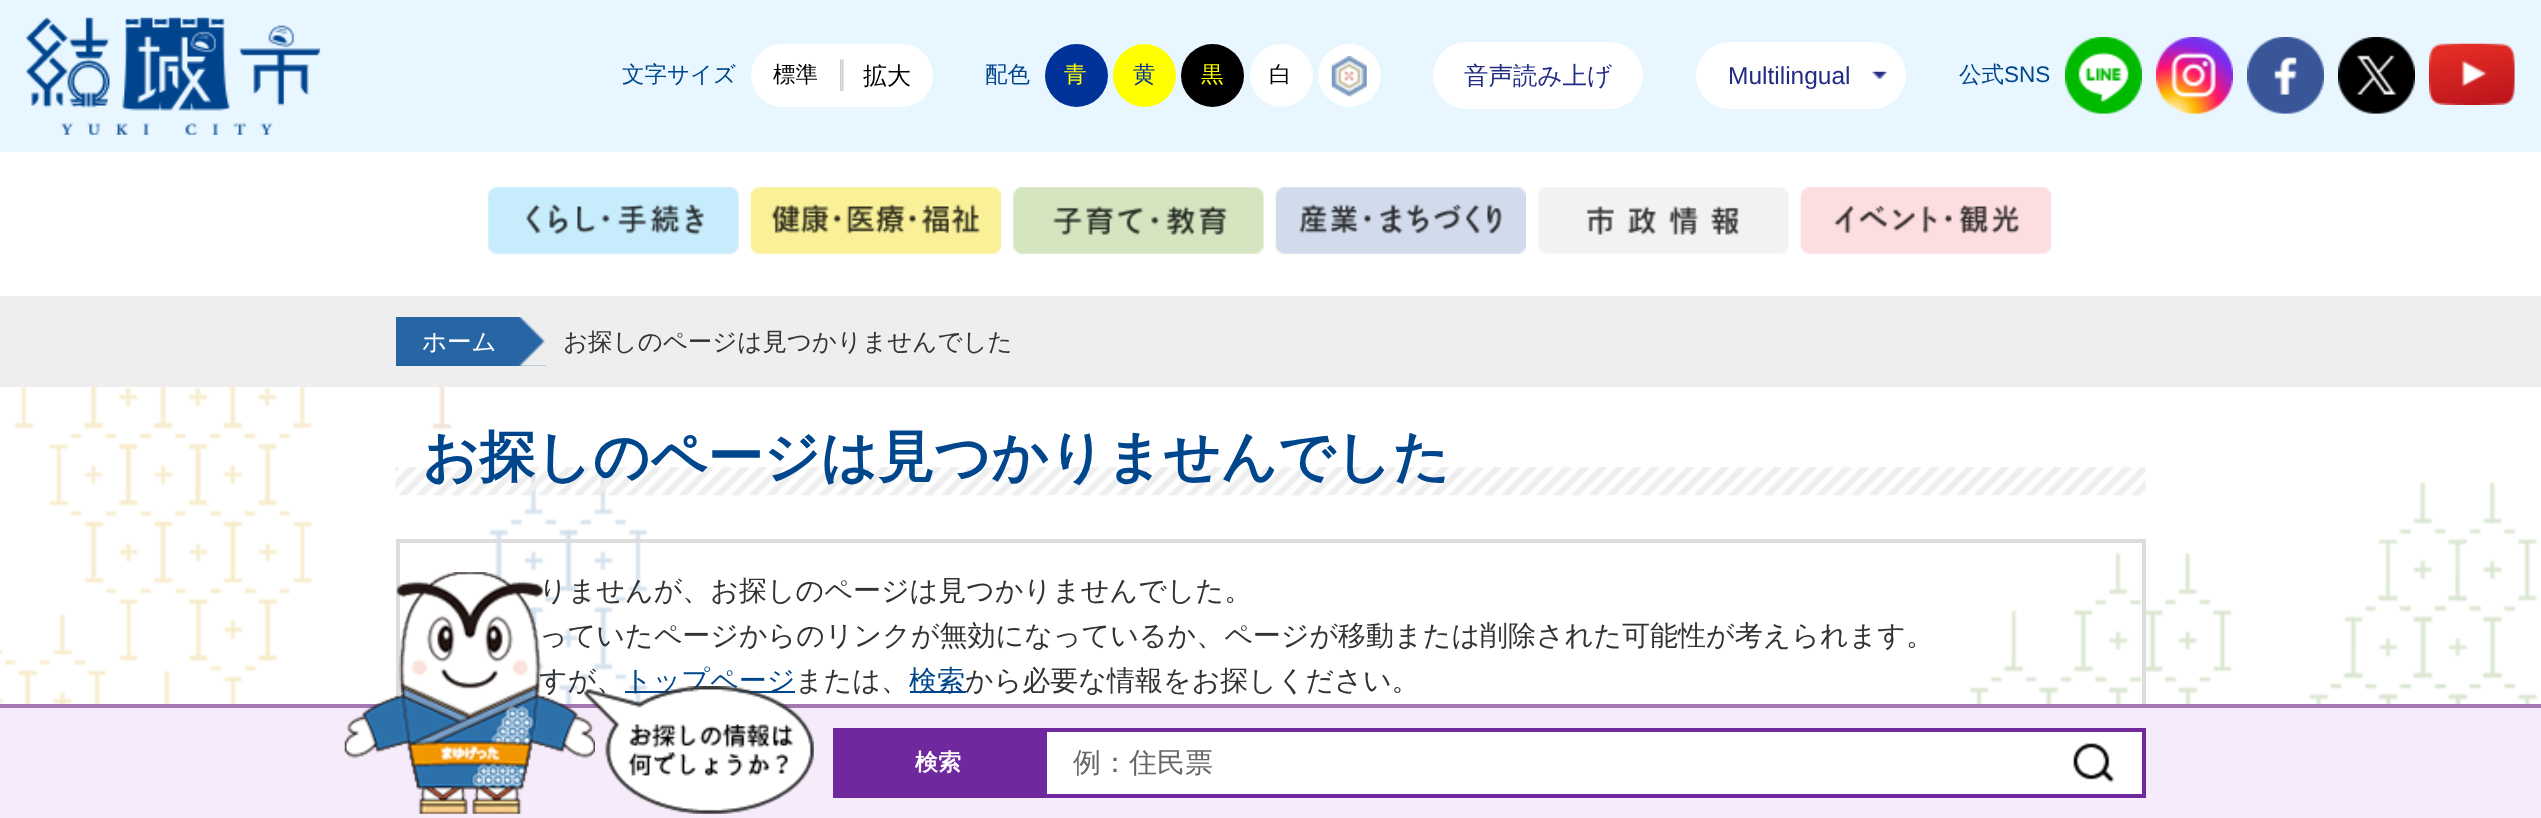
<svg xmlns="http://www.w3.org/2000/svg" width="2541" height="818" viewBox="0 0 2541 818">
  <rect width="100%" height="100%" fill="#ffffff"/>
  <image x="0" y="387" width="2538" height="317" href="img1.png"/>
  <rect x="0" y="0" width="2541" height="152" fill="#e7f6ff"/>
  <image x="26" y="17" width="295" height="118" href="img2.png"/>
  <text x="622" y="82" font-family="WenQuanYi Zen Hei" font-size="22.5" font-weight="500" fill="#00468c">文字サイズ</text>
  <path d="M782.5 44H842V107H782.5C765 107 751 93 751 75.5C751 58 765 44 782.5 44Z" fill="#ffffff"/>
  <image x="840" y="59" width="2" height="32" href="img3.png"/>
  <text x="773" y="82" font-family="WenQuanYi Zen Hei" font-size="22.5" font-weight="500" fill="#000000">標準</text>
  <path d="M842 44H901.5C919 44 933 58 933 75.5C933 93 919 107 901.5 107H842Z" fill="#ffffff"/>
  <image x="842" y="59" width="2" height="32" href="img4.png"/>
  <text x="863" y="84" font-family="WenQuanYi Zen Hei" font-size="24" font-weight="500" fill="#000000">拡大</text>
  <text x="985" y="82" font-family="WenQuanYi Zen Hei" font-size="22.5" font-weight="500" fill="#00468c">配色</text>
  <circle cx="1076.5" cy="75.5" r="31.5" fill="#003399"/>
  <text x="1064" y="82" font-family="WenQuanYi Zen Hei" font-size="22.5" font-weight="500" fill="#ffff00">青</text>
  <circle cx="1144.5" cy="75.5" r="31.5" fill="#ffff00"/>
  <text x="1133" y="82" font-family="WenQuanYi Zen Hei" font-size="22.5" font-weight="500" fill="#003399">黄</text>
  <circle cx="1212.5" cy="75.5" r="31.5" fill="#000000"/>
  <text x="1201" y="82" font-family="WenQuanYi Zen Hei" font-size="22.5" font-weight="500" fill="#ffff00">黒</text>
  <circle cx="1281.5" cy="75.5" r="31.5" fill="#ffffff"/>
  <text x="1269" y="82" font-family="WenQuanYi Zen Hei" font-size="22.5" font-weight="500" fill="#000000">白</text>
  <circle cx="1349.5" cy="75.5" r="31.5" fill="#ffffff"/>
  <image x="1331" y="56" width="36" height="41" href="img5.png"/>
  <rect x="1433" y="42" width="210" height="67" rx="33.5" fill="#ffffff"/>
  <text x="1464" y="84" font-family="WenQuanYi Zen Hei" font-size="24.5" font-weight="500" fill="#232c83">音声読み上げ</text>
  <rect x="1696" y="42" width="210" height="67" rx="33.5" fill="#ffffff"/>
  <image x="1872" y="71" width="15" height="8" href="img6.png"/>
  <text x="1728" y="84" font-family="Liberation Sans" font-size="24.5" fill="#232c83">Multilingual</text>
  <text x="1959" y="82" font-family="WenQuanYi Zen Hei" font-size="22.5" font-weight="500" fill="#00468c">公式</text>
  <text x="2004" y="82" font-family="Liberation Sans" font-size="22.5" fill="#00468c">SNS</text>
  <image x="2065" y="37" width="77" height="77" href="img7.png"/>
  <image x="2156" y="37" width="77" height="77" href="img8.png"/>
  <image x="2247" y="37" width="77" height="77" href="img9.png"/>
  <image x="2338" y="37" width="77" height="77" href="img10.png"/>
  <image x="2429" y="43" width="86" height="62" href="img11.png"/>
  <image x="488" y="187" width="251" height="68" href="img12.png"/>
  <image x="750" y="187" width="251" height="68" href="img13.png"/>
  <image x="1013" y="187" width="251" height="68" href="img14.png"/>
  <image x="1275" y="187" width="251" height="68" href="img15.png"/>
  <image x="1538" y="187" width="251" height="67" href="img16.png"/>
  <image x="1800" y="187" width="251" height="68" href="img17.png"/>
  <rect x="0" y="296" width="2541" height="91" fill="#eeeeee"/>
  <rect x="396" y="317" width="150" height="49" fill="#2765a5"/>
  <image x="519" y="317" width="27" height="49" href="img18.png"/>
  <text x="422" y="350" font-family="WenQuanYi Zen Hei" font-size="24.5" font-weight="500" fill="#ffffff">ホーム</text>
  <text x="563" y="350" font-family="WenQuanYi Zen Hei" font-size="24.5" font-weight="500" fill="#333333">お探しのページは見つかりませんでした</text>
  <image x="395" y="467" width="1751" height="29" href="img19.png"/>
  <text x="422" y="476" font-family="WenQuanYi Zen Hei" font-size="56" font-weight="bold" fill="#00468c">お探しのページは見つかりませんでした</text>
  <rect x="398" y="541" width="1746" height="190" fill="none" stroke="#dddddd" stroke-width="4"/>
  <text x="539" y="600" font-family="WenQuanYi Zen Hei" font-size="28" font-weight="500" fill="#333333">りませんが、お探しのページは見つかりませんでした。</text>
  <text x="539" y="645" font-family="WenQuanYi Zen Hei" font-size="28" font-weight="500" fill="#333333">っていたページからのリンクが無効になっているか、ページが移動または削除された可能性が考えられます。</text>
  <text x="539" y="690" font-family="WenQuanYi Zen Hei" font-size="28" font-weight="500" fill="#333333">すが、</text>
  <rect x="625" y="691" width="170" height="2" fill="#00468c"/>
  <text x="624" y="690" font-family="WenQuanYi Zen Hei" font-size="28" font-weight="500" fill="#00468c">トップページ</text>
  <text x="795" y="690" font-family="WenQuanYi Zen Hei" font-size="28" font-weight="500" fill="#333333">または、</text>
  <rect x="910" y="691" width="56" height="2" fill="#00468c"/>
  <text x="909" y="690" font-family="WenQuanYi Zen Hei" font-size="28" font-weight="500" fill="#00468c">検索</text>
  <text x="965" y="690" font-family="WenQuanYi Zen Hei" font-size="28" font-weight="500" fill="#333333">から必要な情報をお探しください。</text>
  <rect x="0" y="708" width="2541" height="110" fill="#f6ebfa"/>
  <rect x="0" y="704" width="2541" height="4" fill="#a277b2"/>
  <image x="344" y="572" width="251" height="242" href="img20.png"/>
  <rect x="833" y="728" width="210" height="70" fill="#6f289d"/>
  <text x="915" y="770" font-family="WenQuanYi Zen Hei" font-size="23" font-weight="bold" fill="#ffffff">検索</text>
  <image x="584" y="686" width="230" height="128" href="img21.png"/>
  <rect x="1045" y="730" width="1099" height="66" fill="#ffffff" stroke="#6f289d" stroke-width="4"/>
  <text x="1073" y="772" font-family="WenQuanYi Zen Hei" font-size="28" font-weight="500" fill="#666666">例：住民票</text>
  <image x="2073" y="743" width="42" height="40" href="img22.png"/>
</svg>
